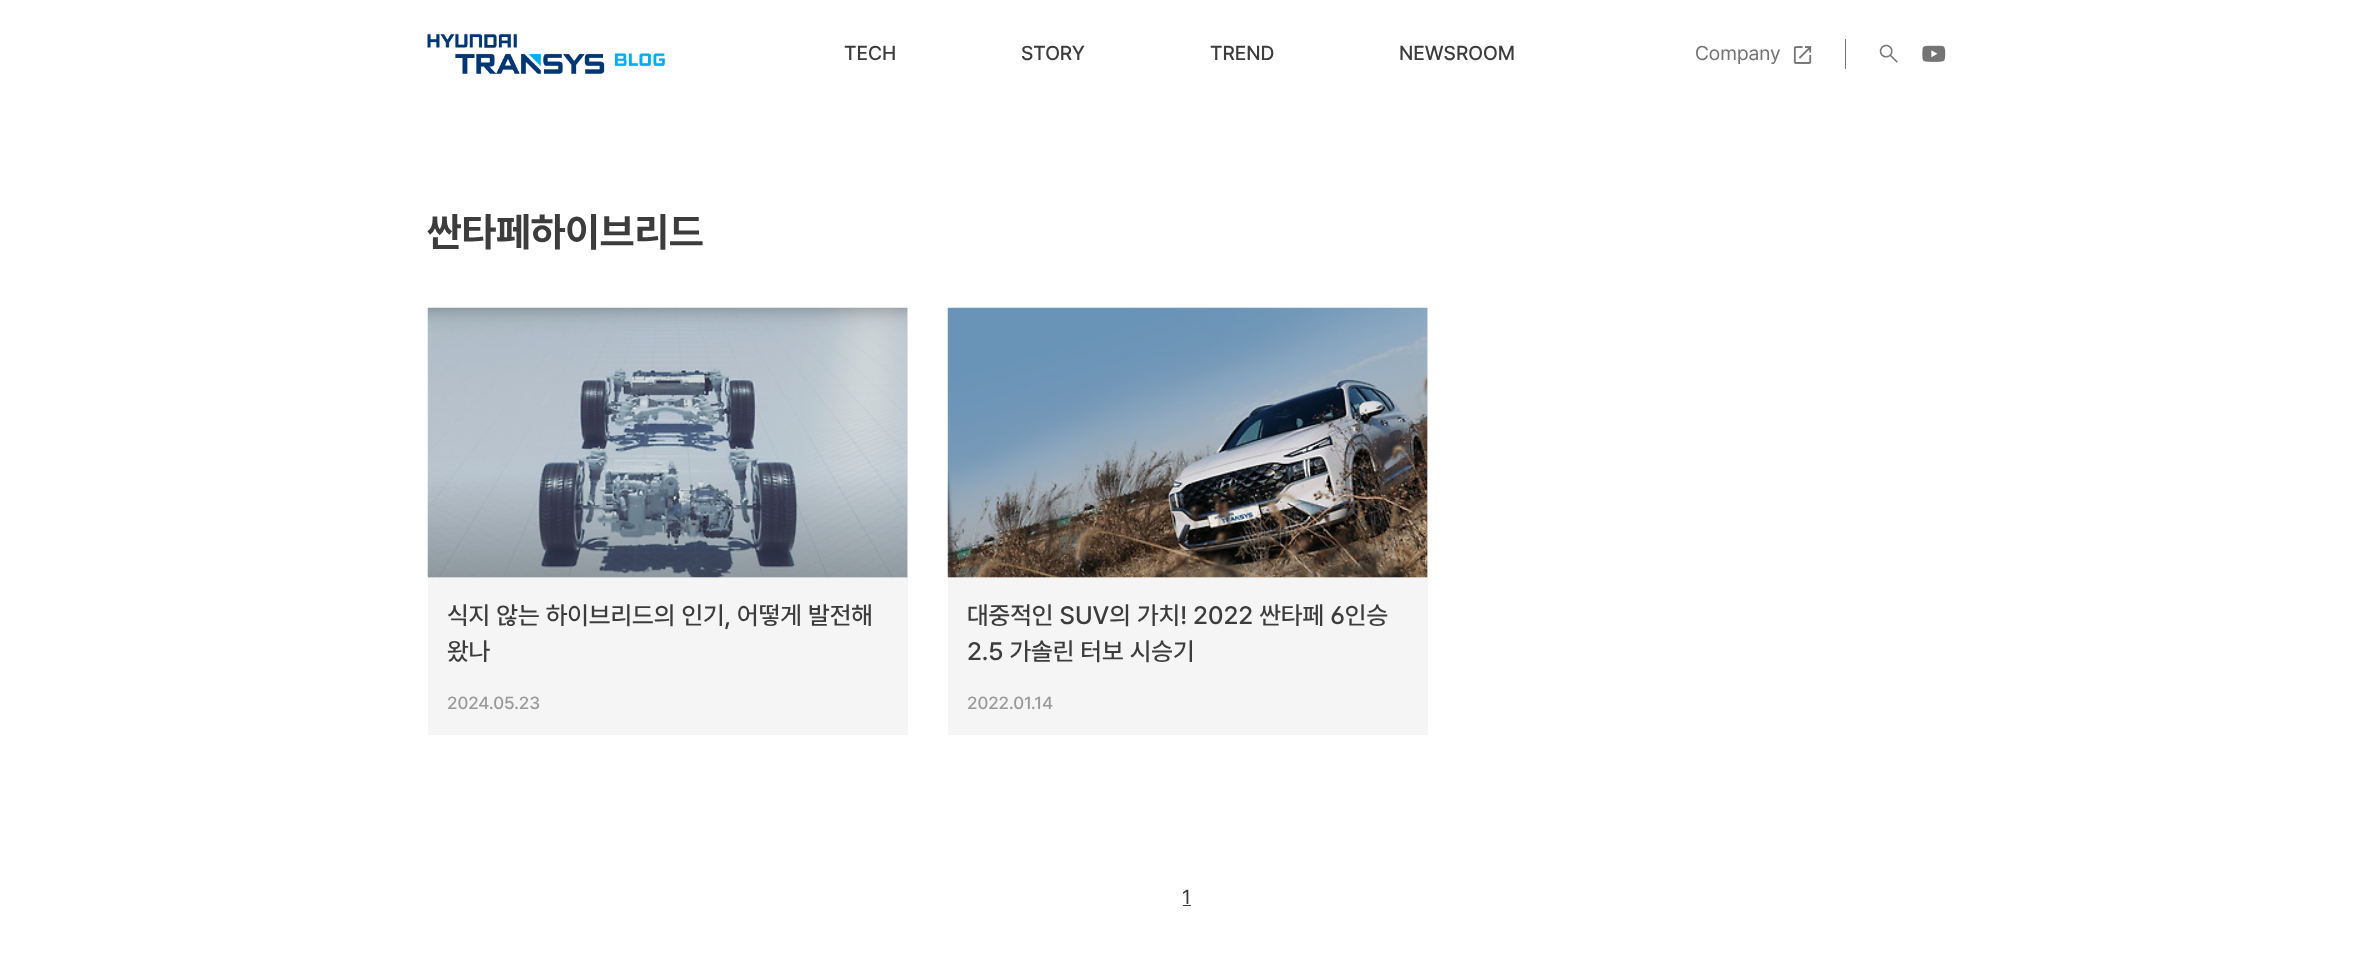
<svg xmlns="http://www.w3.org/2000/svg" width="2373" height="968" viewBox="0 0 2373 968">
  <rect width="100%" height="100%" fill="#ffffff"/>
  <image x="427" y="33" width="238" height="41" href="img1.png"/>
  <text x="844" y="60" font-family="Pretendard" font-size="20" font-weight="500" fill="#3c3c3c">TECH</text>
  <text x="1021" y="60" font-family="Pretendard" font-size="20" font-weight="500" fill="#3c3c3c">STORY</text>
  <text x="1210" y="60" font-family="Pretendard" font-size="20" font-weight="500" fill="#3c3c3c">TREND</text>
  <text x="1399" y="60" font-family="Pretendard" font-size="20" font-weight="500" fill="#3c3c3c">NEWSROOM</text>
  <text x="1695" y="60" font-family="Pretendard" font-size="20" fill="#747474">Company</text>
  <image x="1793" y="46" width="19" height="18" href="img2.png"/>
  <rect x="1845" y="39" width="1" height="30" fill="#747474"/>
  <image x="1879" y="44" width="19" height="19" href="img3.png"/>
  <image x="1922" y="45" width="24" height="17" href="img4.png"/>
  <text x="427" y="246" font-family="Pretendard" font-size="40" font-weight="bold" fill="#3c3c3c">싼타페하이브리드</text>
  <rect x="428" y="578" width="480" height="157" fill="#f5f5f5"/>
  <rect x="428" y="308" width="480" height="270" fill="#e6e6e6"/>
  <image x="427" y="307" width="481" height="271" href="img5.png"/>
  <text x="447" y="624" font-family="Pretendard" font-size="25" font-weight="500" fill="#3c3c3c">식지 않는 하이브리드의 인기, 어떻게 발전해</text>
  <text x="447" y="660" font-family="Pretendard" font-size="25" font-weight="500" fill="#3c3c3c">왔나</text>
  <text x="447" y="709" font-family="Pretendard" font-size="17.5" font-weight="500" fill="#999999">2024.05.23</text>
  <rect x="948" y="578" width="480" height="157" fill="#f5f5f5"/>
  <rect x="948" y="308" width="480" height="270" fill="#e6e6e6"/>
  <image x="947" y="307" width="481" height="271" href="img6.png"/>
  <text x="967" y="624" font-family="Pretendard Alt" font-size="25" font-weight="500" fill="#3c3c3c">대중적인 SUV의 가치! 2022 싼타페 6인승</text>
  <text x="967" y="660" font-family="Pretendard" font-size="25" font-weight="500" fill="#3c3c3c">2.5 가솔린 터보 시승기</text>
  <text x="967" y="709" font-family="Pretendard" font-size="17.5" font-weight="500" fill="#999999">2022.01.14</text>
  <text x="1182" y="904" font-family="Pretendard" font-size="20" fill="#3c3c3c">1</text>
  <rect x="1183" y="905" width="8" height="1" fill="#3c3c3c"/>
</svg>
